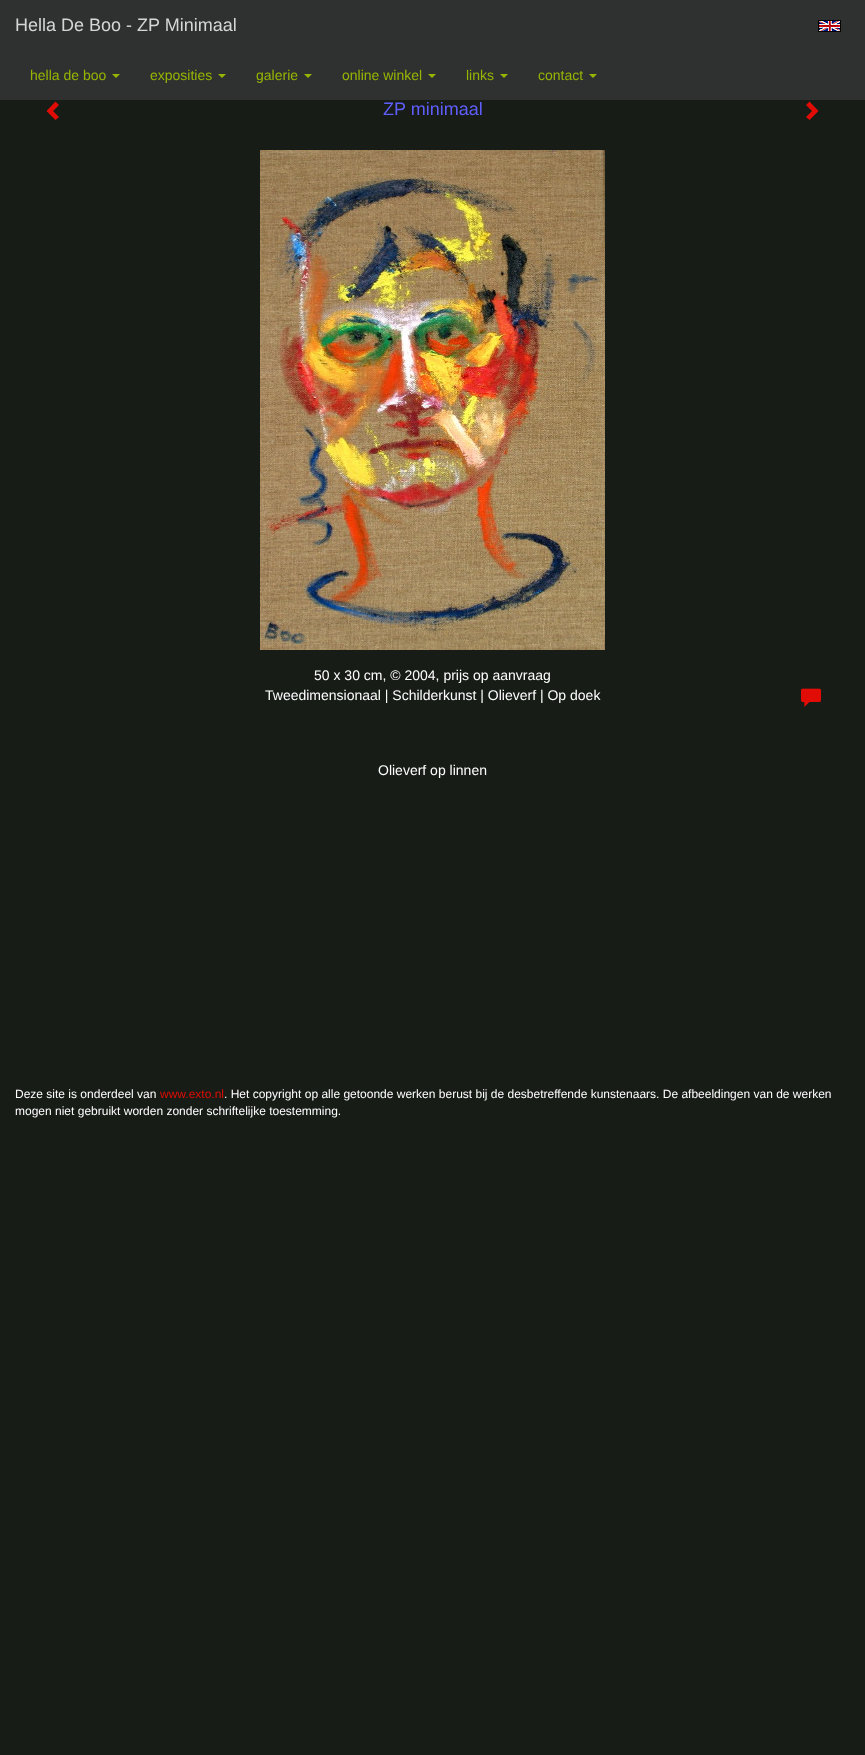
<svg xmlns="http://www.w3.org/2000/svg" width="865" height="1755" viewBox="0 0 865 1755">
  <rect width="100%" height="100%" fill="#171c17"/>
  <rect x="0" y="0" width="865" height="100" fill="#2f3130"/>
  <text x="15" y="31" font-family="Liberation Sans" font-size="18" fill="#d5d6d6">Hella De Boo - ZP Minimaal</text>
  <image x="818" y="20" width="23" height="12" href="img1.png"/>
  <text x="30" y="80" font-family="Liberation Sans" font-size="14" fill="#98b503">hella de boo</text>
  <path d="M112 74H120L116 78Z" fill="#98b503"/>
  <text x="150" y="80" font-family="Liberation Sans" font-size="14" fill="#98b503">exposities</text>
  <path d="M218 74H226L222 78Z" fill="#98b503"/>
  <text x="256" y="80" font-family="Liberation Sans" font-size="14" fill="#98b503">galerie</text>
  <path d="M304 74H312L308 78Z" fill="#98b503"/>
  <text x="342" y="80" font-family="Liberation Sans" font-size="14" fill="#98b503">online winkel</text>
  <path d="M428 74H436L432 78Z" fill="#98b503"/>
  <text x="466" y="80" font-family="Liberation Sans" font-size="14" fill="#98b503">links</text>
  <path d="M500 74H508L504 78Z" fill="#98b503"/>
  <text x="538" y="80" font-family="Liberation Sans" font-size="14" fill="#98b503">contact</text>
  <path d="M589 74H597L593 78Z" fill="#98b503"/>
  <path d="M59 105L53 111L59 117L55.5 120L46.5 111L55.5 101.5Z" fill="#e10c05"/>
  <text x="383" y="115" font-family="Liberation Sans" font-size="18" fill="#5f5efd">ZP minimaal</text>
  <path d="M818.5 111L809.5 120L806 117L812 111L806 105L809.5 101.5Z" fill="#e10c05"/>
  <image x="260" y="150" width="345" height="500" href="img2.png"/>
  <text x="314" y="680" font-family="Liberation Sans" font-size="14" fill="#ffffff">50 x 30 cm, © 2004, prijs op aanvraag</text>
  <text x="265" y="700" font-family="Liberation Sans" font-size="14" fill="#ffffff">Tweedimensionaal | Schilderkunst | Olieverf | Op doek</text>
  <image x="801" y="688" width="20" height="19" href="img3.png"/>
  <text x="378" y="775" font-family="Liberation Sans" font-size="14" fill="#ffffff">Olieverf op linnen</text>
  <text x="15" y="1098" font-family="Liberation Sans" font-size="12" fill="#ffffff">Deze site is onderdeel van</text>
  <text x="160" y="1098" font-family="Liberation Sans" font-size="12" fill="#e10c05">www.exto.nl</text>
  <text x="224" y="1098" font-family="Liberation Sans" font-size="12" fill="#ffffff">. Het copyright op alle getoonde werken berust bij de desbetreffende kunstenaars. De afbeeldingen van de werken</text>
  <text x="15" y="1115" font-family="Liberation Sans" font-size="12" fill="#ffffff">mogen niet gebruikt worden zonder schriftelijke toestemming.</text>
</svg>
